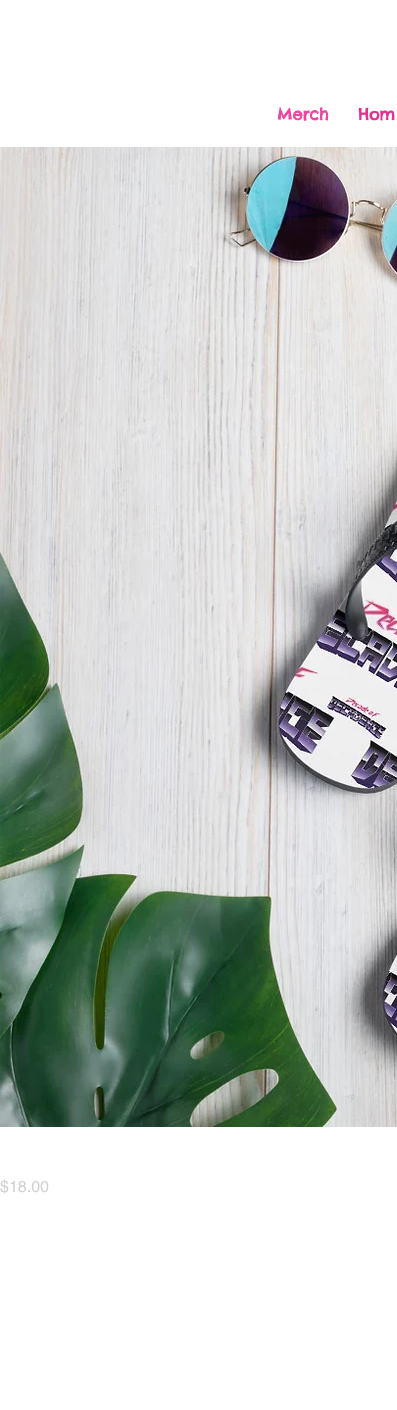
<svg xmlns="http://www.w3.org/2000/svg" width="397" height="1410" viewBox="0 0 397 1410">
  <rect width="100%" height="100%" fill="#ffffff"/>
  <text x="277" y="120" font-family="Chelsea Market" font-size="16" font-weight="bold" fill="#ed45a0">Merch</text>
  <text x="358" y="120" font-family="Chelsea Market" font-size="16" font-weight="bold" fill="#e43292">Hom</text>
  <image x="0" y="147" width="397" height="980" href="img1.png"/>
  <text x="0" y="1192" font-family="helvetica" font-size="16" fill="#d1d1d1">$18.00</text>
</svg>
